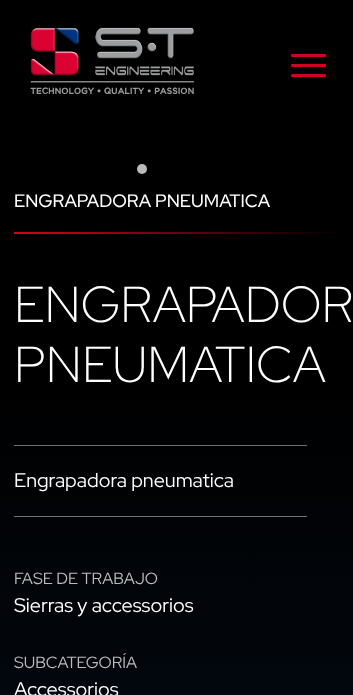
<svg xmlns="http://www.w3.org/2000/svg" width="353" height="695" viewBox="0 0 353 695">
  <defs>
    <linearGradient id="g1" gradientUnits="userSpaceOnUse" x1="176" y1="0" x2="177" y2="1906"><stop offset="0.2" stop-color="#000000"/><stop offset="0.9" stop-color="#081d38"/></linearGradient>
    <linearGradient id="g2" gradientUnits="userSpaceOnUse" x1="14" y1="233" x2="340" y2="233"><stop offset="0" stop-color="#d20022"/><stop offset="1" stop-color="#000000"/></linearGradient>
  </defs>
  <rect width="100%" height="100%" fill="#ffffff"/>
  <rect x="0" y="0" width="353" height="695" fill="url(#g1)"/>
  <image x="30" y="27" width="164" height="68" href="img1.png"/>
  <rect x="291" y="54" width="35" height="3" rx="1" fill="#d20022"/>
  <rect x="291" y="64" width="35" height="3" rx="1" fill="#d20022"/>
  <rect x="291" y="74" width="35" height="3" rx="1" fill="#d20022"/>
  <circle cx="142" cy="169" r="5" fill="#b9bbbc"/>
  <text x="14" y="207" font-family="Red Hat Display" font-size="18" font-weight="500" fill="#ffffff">ENGRAPADORA PNEUMATICA</text>
  <rect x="14" y="232" width="326" height="2" fill="url(#g2)"/>
  <text x="14" y="322" font-family="Red Hat Display" font-size="50.5" font-weight="300" fill="#ffffff">ENGRAPADOR</text>
  <text x="14" y="382" font-family="Red Hat Display" font-size="50.5" font-weight="300" fill="#ffffff">PNEUMATICA</text>
  <rect x="14" y="445" width="293" height="1" fill="#707070"/>
  <rect x="14" y="516" width="293" height="1" fill="#707070"/>
  <text x="14" y="487" font-family="Red Hat Display" font-size="19.75" fill="#ffffff">Engrapadora pneumatica</text>
  <text x="14" y="584" font-family="Red Hat Display" font-size="16.25" fill="#b9bbbc">FASE DE TRABAJO</text>
  <text x="14" y="612" font-family="Red Hat Display" font-size="19.75" fill="#ffffff">Sierras y accessorios</text>
  <text x="14" y="668" font-family="Red Hat Display" font-size="16.25" fill="#b9bbbc">SUBCATEGORÍA</text>
  <text x="14" y="696" font-family="Red Hat Display" font-size="19.75" fill="#ffffff">Accessorios</text>
</svg>
